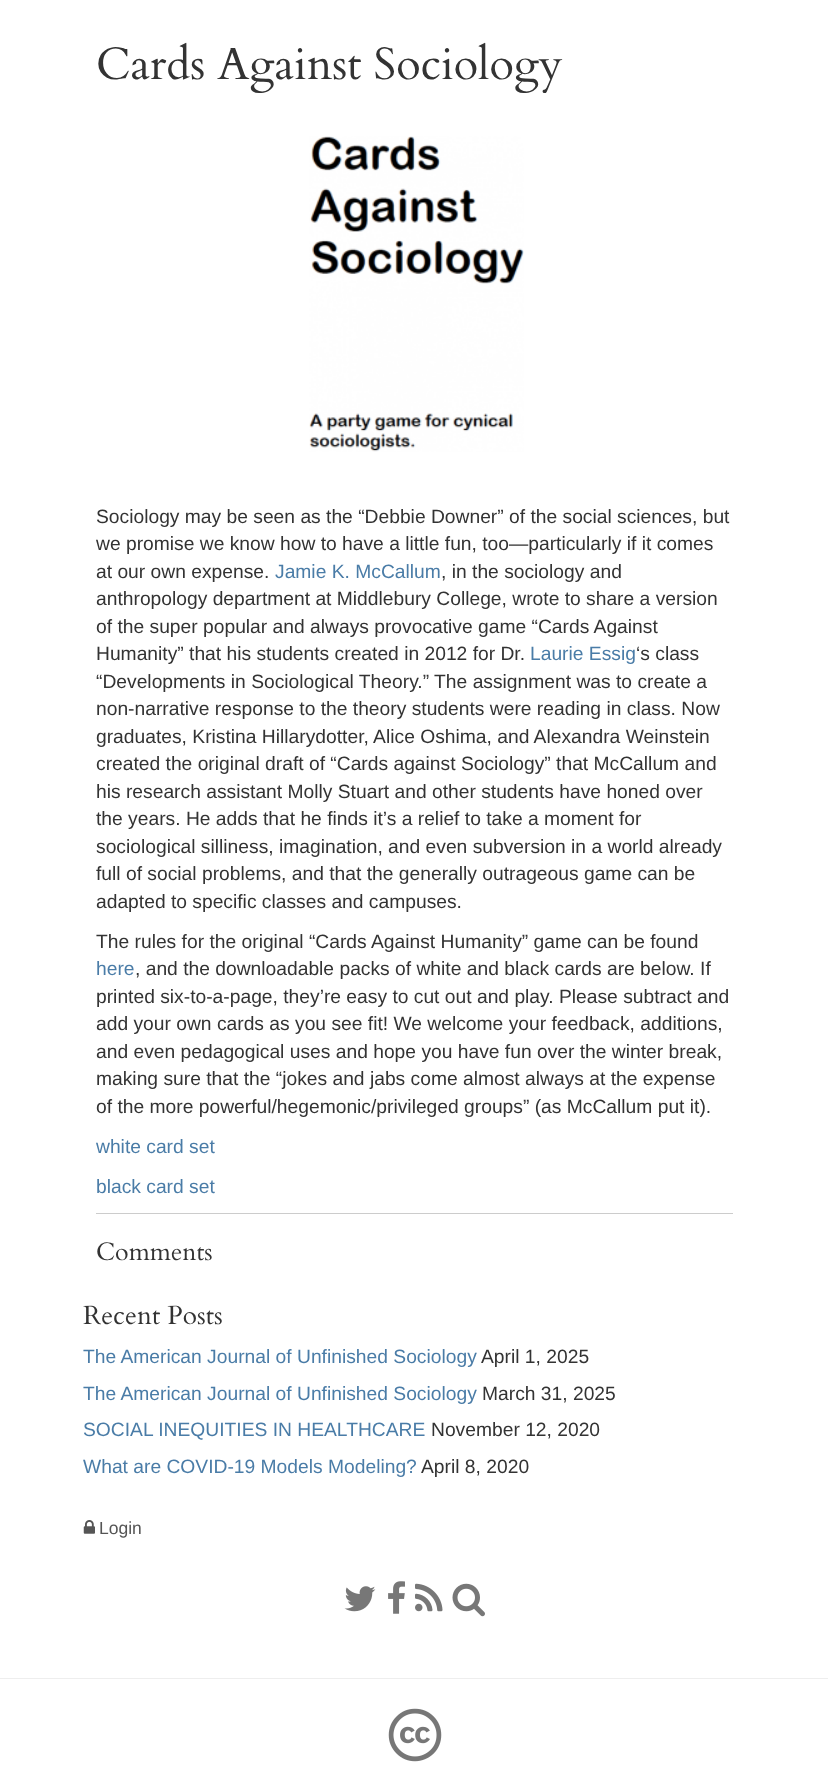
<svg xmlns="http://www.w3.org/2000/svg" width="828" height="1777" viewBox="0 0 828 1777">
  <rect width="100%" height="100%" fill="#ffffff"/>
  <text x="96" y="79" font-family="Cardo" font-size="45" fill="#333333">Cards Against Sociology</text>
  <image x="309" y="136" width="215" height="316" href="img1.png"/>
  <text x="96" y="523" font-family="Liberation Sans" font-size="19.25" fill="#333333">Sociology may be seen as the “Debbie Downer” of the social sciences, but</text>
  <text x="96" y="550" font-family="Liberation Sans" font-size="19.25" fill="#333333">we promise we know how to have a little fun, too—particularly if it comes</text>
  <text x="96" y="578" font-family="Liberation Sans" font-size="19.25" fill="#333333">at our own expense.</text>
  <text x="275" y="578" font-family="Liberation Sans" font-size="19.25" fill="#4a7ca7">Jamie K. McCallum</text>
  <text x="441" y="578" font-family="Liberation Sans" font-size="19.25" fill="#333333">, in the sociology and</text>
  <text x="96" y="605" font-family="Liberation Sans" font-size="19.25" fill="#333333">anthropology department at Middlebury College, wrote to share a version</text>
  <text x="96" y="633" font-family="Liberation Sans" font-size="19.25" fill="#333333">of the super popular and always provocative game “Cards Against</text>
  <text x="96" y="660" font-family="Liberation Sans" font-size="19.25" fill="#333333">Humanity” that his students created in 2012 for Dr.</text>
  <text x="530" y="660" font-family="Liberation Sans" font-size="19.25" fill="#4a7ca7">Laurie Essig</text>
  <text x="636" y="660" font-family="Liberation Sans" font-size="19.25" fill="#333333">‘s class</text>
  <text x="96" y="688" font-family="Liberation Sans" font-size="19.25" fill="#333333">“Developments in Sociological Theory.” The assignment was to create a</text>
  <text x="96" y="715" font-family="Liberation Sans" font-size="19.25" fill="#333333">non-narrative response to the theory students were reading in class. Now</text>
  <text x="96" y="743" font-family="Liberation Sans" font-size="19.25" fill="#333333">graduates, Kristina Hillarydotter, Alice Oshima, and Alexandra Weinstein</text>
  <text x="96" y="770" font-family="Liberation Sans" font-size="19.25" fill="#333333">created the original draft of “Cards against Sociology” that McCallum and</text>
  <text x="96" y="798" font-family="Liberation Sans" font-size="19.25" fill="#333333">his research assistant Molly Stuart and other students have honed over</text>
  <text x="96" y="825" font-family="Liberation Sans" font-size="19.25" fill="#333333">the years. He adds that he finds it’s a relief to take a moment for</text>
  <text x="96" y="853" font-family="Liberation Sans" font-size="19.25" fill="#333333">sociological silliness, imagination, and even subversion in a world already</text>
  <text x="96" y="880" font-family="Liberation Sans" font-size="19.25" fill="#333333">full of social problems, and that the generally outrageous game can be</text>
  <text x="96" y="908" font-family="Liberation Sans" font-size="19.25" fill="#333333">adapted to specific classes and campuses.</text>
  <text x="96" y="948" font-family="Liberation Sans" font-size="19.25" fill="#333333">The rules for the original “Cards Against Humanity” game can be found</text>
  <text x="96" y="975" font-family="Liberation Sans" font-size="19.25" fill="#4a7ca7">here</text>
  <text x="135" y="975" font-family="Liberation Sans" font-size="19.25" fill="#333333">, and the downloadable packs of white and black cards are below. If</text>
  <text x="96" y="1003" font-family="Liberation Sans" font-size="19.25" fill="#333333">printed six-to-a-page, they’re easy to cut out and play. Please subtract and</text>
  <text x="96" y="1030" font-family="Liberation Sans" font-size="19.25" fill="#333333">add your own cards as you see fit! We welcome your feedback, additions,</text>
  <text x="96" y="1058" font-family="Liberation Sans" font-size="19.25" fill="#333333">and even pedagogical uses and hope you have fun over the winter break,</text>
  <text x="96" y="1085" font-family="Liberation Sans" font-size="19.25" fill="#333333">making sure that the “jokes and jabs come almost always at the expense</text>
  <text x="96" y="1113" font-family="Liberation Sans" font-size="19.25" fill="#333333">of the more powerful/hegemonic/privileged groups” (as McCallum put it).</text>
  <text x="96" y="1153" font-family="Liberation Sans" font-size="19.25" fill="#4a7ca7">white card set</text>
  <text x="96" y="1193" font-family="Liberation Sans" font-size="19.25" fill="#4a7ca7">black card set</text>
  <rect x="96" y="1213" width="637" height="1" fill="#cccccc"/>
  <text x="96" y="1260" font-family="Cardo" font-size="25" fill="#333333">Comments</text>
  <text x="83" y="1324" font-family="Cardo" font-size="26.25" fill="#333333">Recent Posts</text>
  <text x="83" y="1363" font-family="Liberation Sans" font-size="19.25" fill="#4a7ca7">The American Journal of Unfinished Sociology</text>
  <text x="481" y="1363" font-family="Liberation Sans" font-size="19.25" fill="#333333">April 1, 2025</text>
  <text x="83" y="1400" font-family="Liberation Sans" font-size="19.25" fill="#4a7ca7">The American Journal of Unfinished Sociology</text>
  <text x="482" y="1400" font-family="Liberation Sans" font-size="19.25" fill="#333333">March 31, 2025</text>
  <text x="83" y="1436" font-family="Liberation Sans" font-size="19.25" fill="#4a7ca7">SOCIAL INEQUITIES IN HEALTHCARE</text>
  <text x="431" y="1436" font-family="Liberation Sans" font-size="19.25" fill="#333333">November 12, 2020</text>
  <text x="83" y="1473" font-family="Liberation Sans" font-size="19.25" fill="#4a7ca7">What are COVID-19 Models Modeling?</text>
  <text x="421" y="1473" font-family="Liberation Sans" font-size="19.25" fill="#333333">April 8, 2020</text>
  <image x="83" y="1520" width="12" height="14" href="img2.png"/>
  <text x="99" y="1534" font-family="Liberation Sans" font-size="17.5" fill="#555555">Login</text>
  <image x="344" y="1586" width="32" height="26" href="img3.png"/>
  <image x="388" y="1581" width="17" height="33" href="img4.png"/>
  <image x="415" y="1583" width="28" height="29" href="img5.png"/>
  <image x="452" y="1583" width="33" height="34" href="img6.png"/>
  <rect x="0" y="1678" width="828" height="1" fill="#eeeeee"/>
  <image x="388" y="1708" width="54" height="54" href="img7.png"/>
</svg>
